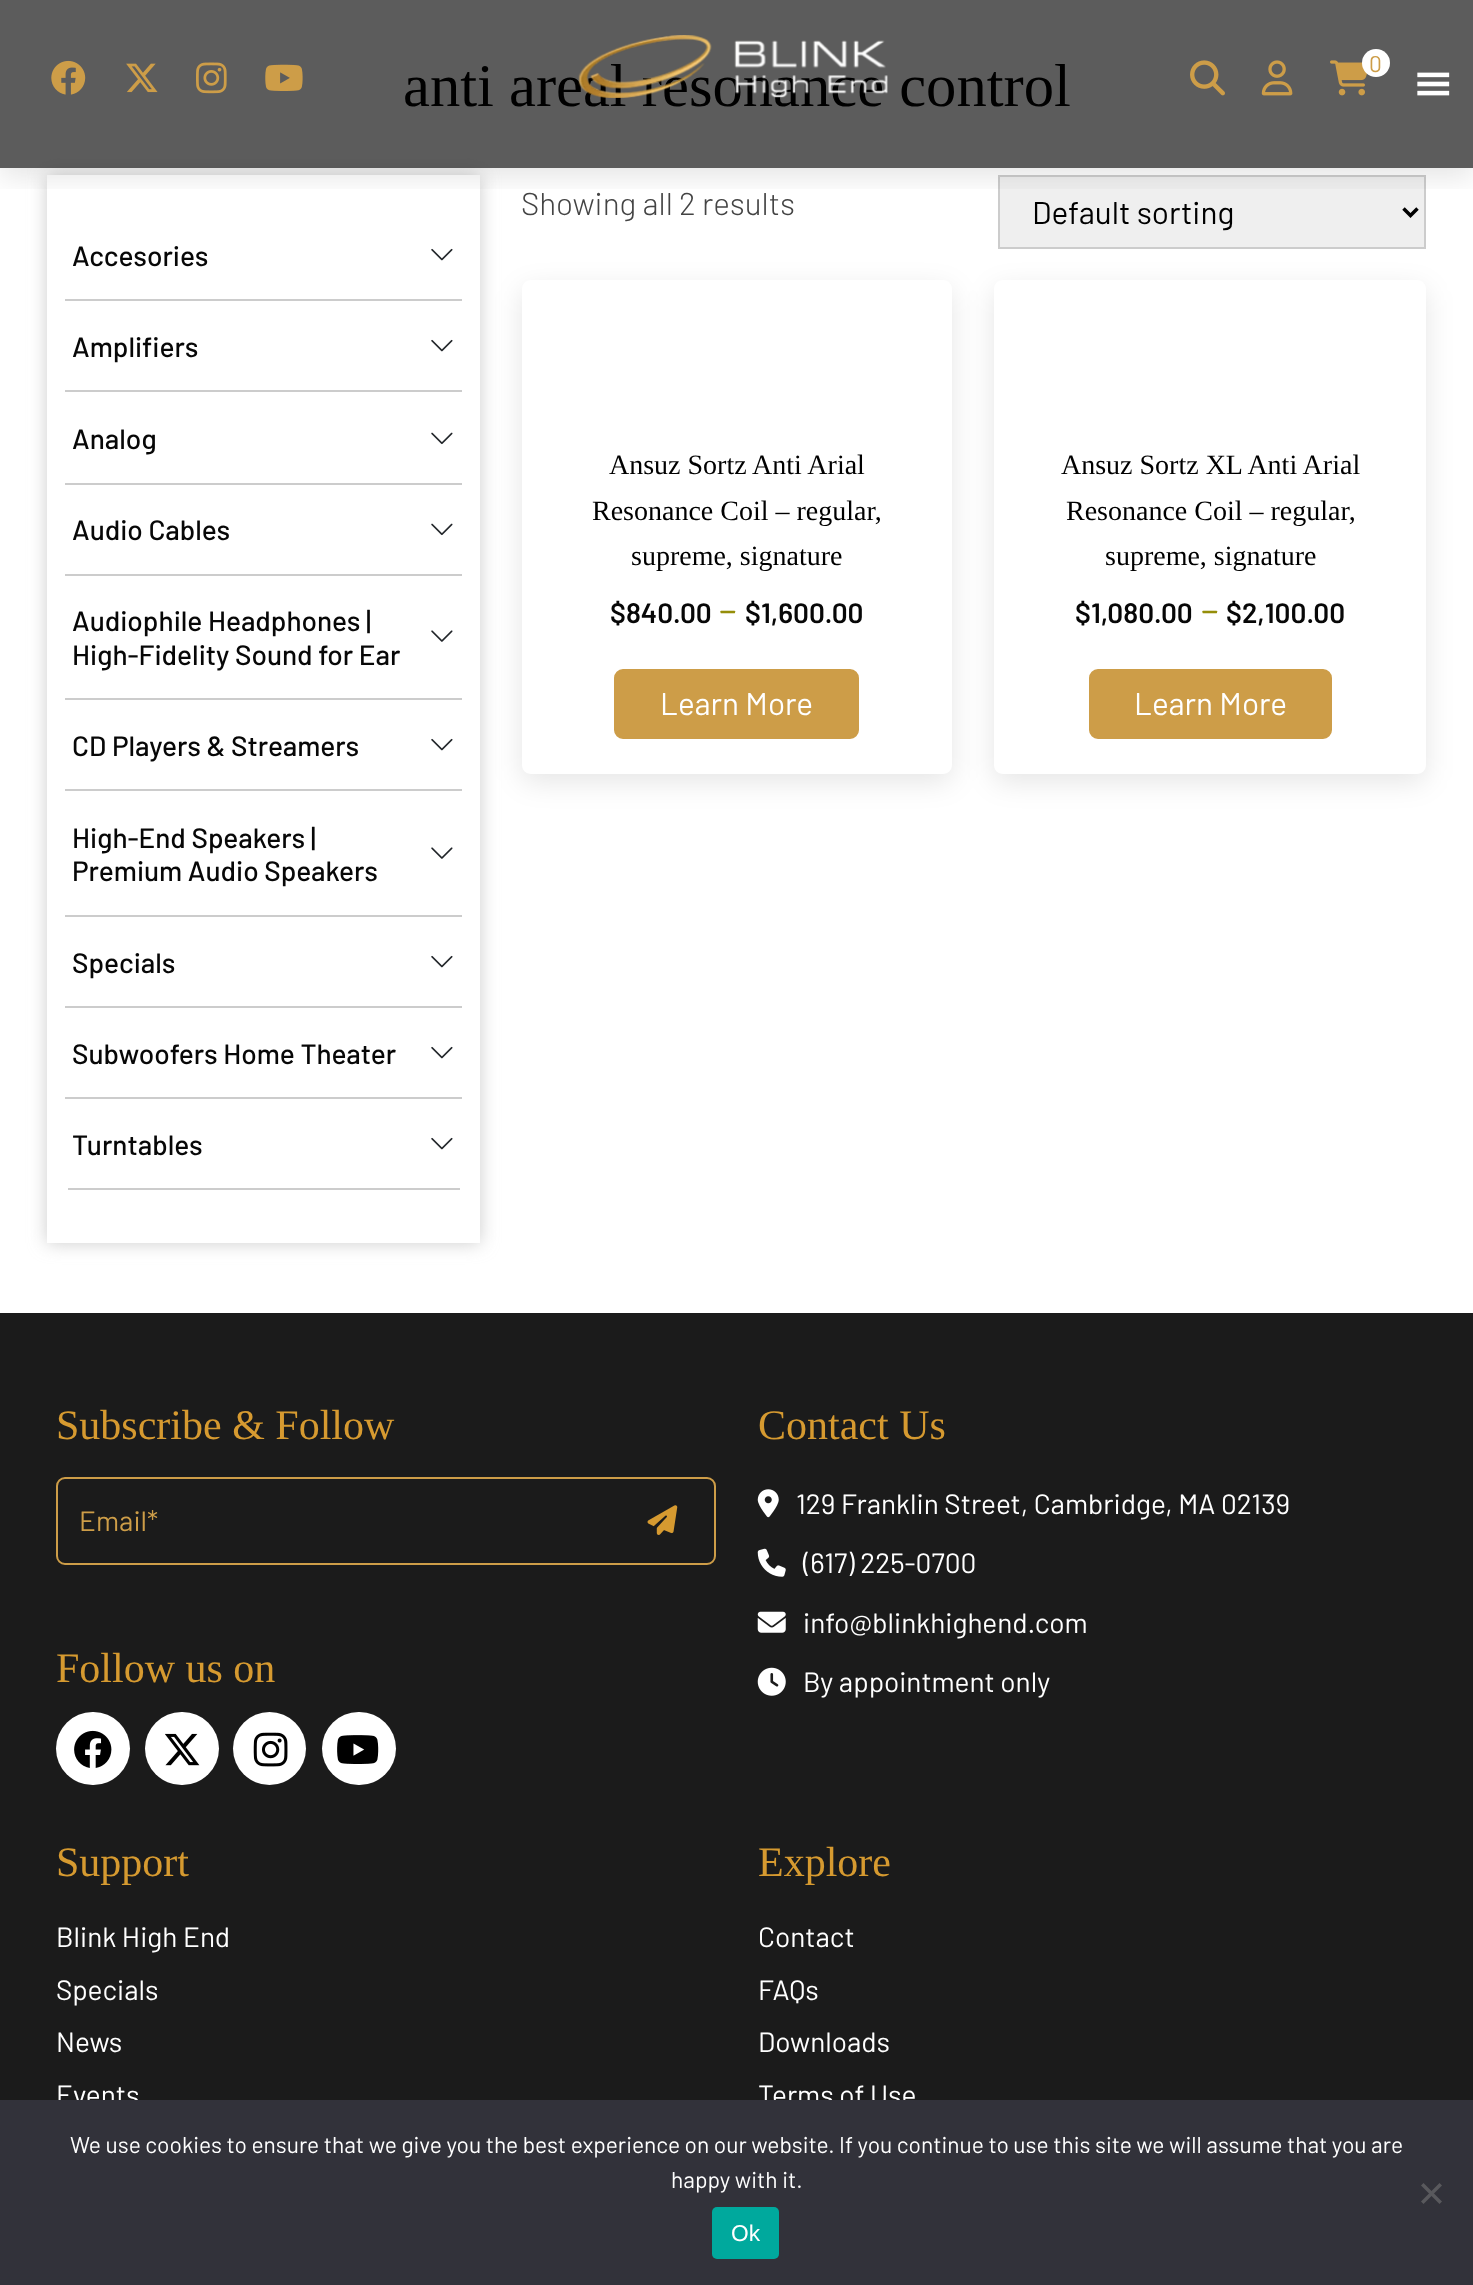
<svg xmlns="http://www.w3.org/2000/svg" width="1473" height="2285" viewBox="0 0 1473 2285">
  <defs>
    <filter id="blur1" x="-50%" y="-200%" width="200%" height="500%"><feGaussianBlur stdDeviation="9"/></filter>
    <clipPath id="clip1"><path d="M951 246H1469V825H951ZM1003 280H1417C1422 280 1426 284 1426 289V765C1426 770 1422 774 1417 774H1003C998 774 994 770 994 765V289C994 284 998 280 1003 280Z" clip-rule="evenodd"/></clipPath>
    <filter id="blur2" x="-50%" y="-200%" width="200%" height="500%"><feGaussianBlur stdDeviation="14"/></filter>
    <clipPath id="clip2"><path d="M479 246H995V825H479ZM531 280H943C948 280 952 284 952 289V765C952 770 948 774 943 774H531C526 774 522 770 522 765V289C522 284 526 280 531 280Z" clip-rule="evenodd"/></clipPath>
    <clipPath id="clip3"><rect x="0" y="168" width="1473" height="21"/></clipPath>
  </defs>
  <rect width="100%" height="100%" fill="#ffffff"/>
  <text x="403" y="106" font-family="Liberation Serif" font-size="60.6" fill="#000000">anti areal resonance control</text>
  <rect x="47" y="175" width="433" height="1068" fill="#cccccc" filter="url(#blur1)"/>
  <rect x="47" y="175" width="433" height="1068" fill="#ffffff"/>
  <rect x="65" y="299" width="397" height="2" fill="#cccccc"/>
  <text x="72" y="266" font-family="Barlow" font-size="28" font-weight="500" fill="#070707">Accesories</text>
  <image x="431" y="248" width="22" height="13" href="img1.png"/>
  <rect x="65" y="390" width="397" height="2" fill="#cccccc"/>
  <text x="72" y="357" font-family="Barlow" font-size="28" font-weight="500" fill="#070707">Amplifiers</text>
  <image x="431" y="339" width="22" height="13" href="img1.png"/>
  <rect x="65" y="483" width="397" height="2" fill="#cccccc"/>
  <text x="72" y="449" font-family="Barlow" font-size="28" font-weight="500" fill="#070707">Analog</text>
  <image x="431" y="432" width="22" height="13" href="img2.png"/>
  <rect x="65" y="574" width="397" height="2" fill="#cccccc"/>
  <text x="72" y="540" font-family="Barlow" font-size="28" font-weight="500" fill="#070707">Audio Cables</text>
  <image x="431" y="523" width="22" height="13" href="img2.png"/>
  <rect x="65" y="698" width="397" height="2" fill="#cccccc"/>
  <text x="72" y="631" font-family="Barlow" font-size="28" font-weight="500" fill="#070707">Audiophile Headphones |</text>
  <image x="431" y="630" width="22" height="12" href="img3.png"/>
  <text x="72" y="665" font-family="Barlow" font-size="28" font-weight="500" fill="#070707">High-Fidelity Sound for Ear</text>
  <rect x="65" y="789" width="397" height="2" fill="#cccccc"/>
  <text x="72" y="756" font-family="Barlow" font-size="28" font-weight="500" fill="#070707">CD Players &amp; Streamers</text>
  <image x="431" y="738" width="22" height="13" href="img1.png"/>
  <rect x="65" y="915" width="397" height="2" fill="#cccccc"/>
  <text x="72" y="848" font-family="Barlow" font-size="28" font-weight="500" fill="#070707">High-End Speakers |</text>
  <image x="431" y="847" width="22" height="12" href="img3.png"/>
  <text x="72" y="881" font-family="Barlow" font-size="28" font-weight="500" fill="#070707">Premium Audio Speakers</text>
  <rect x="65" y="1006" width="397" height="2" fill="#cccccc"/>
  <text x="72" y="973" font-family="Barlow" font-size="28" font-weight="500" fill="#070707">Specials</text>
  <image x="431" y="955" width="22" height="13" href="img1.png"/>
  <rect x="65" y="1097" width="397" height="2" fill="#cccccc"/>
  <text x="72" y="1064" font-family="Barlow" font-size="28" font-weight="500" fill="#070707">Subwoofers Home Theater</text>
  <image x="431" y="1046" width="22" height="13" href="img1.png"/>
  <rect x="68" y="1188" width="392" height="2" fill="#cccccc"/>
  <text x="72" y="1155" font-family="Barlow" font-size="28" font-weight="500" fill="#070707">Turntables</text>
  <image x="431" y="1137" width="22" height="13" href="img1.png"/>
  <text x="521" y="215" font-family="Barlow" font-size="31.5" font-weight="300" fill="#444444">Showing all 2 results</text>
  <g clip-path="url(#clip1)">
    <rect x="994" y="289" width="432" height="493" rx="9" fill="#000000" fill-opacity="0.1" filter="url(#blur2)"/>
  </g>
  <rect x="999" y="176" width="426" height="72" fill="#efefef" stroke="#cccccc" stroke-width="2"/>
  <path d="M1403.5 208.5L1410.5 215.5L1417.5 208.5" fill="none" stroke="#000000" stroke-width="3.5"/>
  <text x="1032" y="224" font-family="Barlow" font-size="31.5" fill="#000000">Default sorting</text>
  <g clip-path="url(#clip2)">
    <rect x="522" y="289" width="430" height="493" rx="9" fill="#000000" fill-opacity="0.1" filter="url(#blur2)"/>
  </g>
  <text x="609" y="474" font-family="Liberation Serif" font-size="28" fill="#000000">Ansuz Sortz Anti Arial</text>
  <text x="592" y="520" font-family="Liberation Serif" font-size="28" fill="#000000">Resonance Coil – regular,</text>
  <text x="631" y="565" font-family="Liberation Serif" font-size="28" fill="#000000">supreme, signature</text>
  <text x="610" y="623" font-family="Barlow" font-size="28" font-weight="600" fill="#070707">$840.00</text>
  <text x="719" y="623" font-family="Barlow" font-size="39" fill="#958e09">–</text>
  <text x="745" y="623" font-family="Barlow" font-size="28" font-weight="600" fill="#070707">$1,600.00</text>
  <rect x="615" y="670" width="243" height="68" rx="8" fill="#cd9d48" stroke="#cd9d48" stroke-width="2"/>
  <text x="660" y="715" font-family="Barlow" font-size="31.5" fill="#ffffff">Learn More</text>
  <text x="1061" y="474" font-family="Liberation Serif" font-size="28" fill="#000000">Ansuz Sortz XL Anti Arial</text>
  <text x="1066" y="520" font-family="Liberation Serif" font-size="28" fill="#000000">Resonance Coil – regular,</text>
  <text x="1105" y="565" font-family="Liberation Serif" font-size="28" fill="#000000">supreme, signature</text>
  <text x="1075" y="623" font-family="Barlow" font-size="28" font-weight="600" fill="#070707">$1,080.00</text>
  <text x="1201" y="623" font-family="Barlow" font-size="39" fill="#958e09">–</text>
  <text x="1226" y="623" font-family="Barlow" font-size="28" font-weight="600" fill="#070707">$2,100.00</text>
  <rect x="1090" y="670" width="241" height="68" rx="8" fill="#cd9d48" stroke="#cd9d48" stroke-width="2"/>
  <text x="1134" y="715" font-family="Barlow" font-size="31.5" fill="#ffffff">Learn More</text>
  <g clip-path="url(#clip3)">
    <rect x="0" y="9" width="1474" height="168" fill="#000000" fill-opacity="0.1" filter="url(#blur2)"/>
  </g>
  <rect x="0" y="0" width="1473" height="168" fill="#000000" fill-opacity="0.64"/>
  <image x="51" y="60" width="35" height="35" href="img4.png"/>
  <image x="126" y="63" width="32" height="30" href="img5.png"/>
  <image x="196" y="62" width="31" height="32" href="img6.png"/>
  <image x="265" y="64" width="38" height="27" href="img7.png"/>
  <image x="578" y="35" width="310" height="63" href="img8.png"/>
  <image x="1190" y="60" width="35" height="36" href="img9.png"/>
  <image x="1261" y="60" width="32" height="36" href="img10.png"/>
  <image x="1330" y="60" width="37" height="36" href="img11.png"/>
  <circle cx="1376" cy="63" r="14" fill="#ffffff"/>
  <text x="1369" y="72" font-family="Barlow" font-size="22.75" fill="#cd9d48">0</text>
  <image x="1417" y="72" width="33" height="24" href="img12.png"/>
  <rect x="0" y="1313" width="1473" height="787" fill="#1b1b1b"/>
  <text x="56" y="1439" font-family="Liberation Serif" font-size="42" fill="#d69a30">Subscribe &amp; Follow</text>
  <rect x="57" y="1478" width="658" height="86" rx="8" fill="none" stroke="#cd9d48" stroke-width="2"/>
  <text x="79" y="1531" font-family="Barlow" font-size="28" fill="#cd9d48">Email*</text>
  <image x="647" y="1505" width="31" height="30" href="img13.png"/>
  <text x="56" y="1682" font-family="Liberation Serif" font-size="42" fill="#d69a30">Follow us on</text>
  <rect x="56" y="1712" width="74" height="73" rx="36.5" fill="#ffffff"/>
  <image x="74" y="1730" width="38" height="38" href="img14.png"/>
  <rect x="145" y="1712" width="74" height="73" rx="36.5" fill="#ffffff"/>
  <image x="165" y="1733" width="35" height="33" href="img15.png"/>
  <circle cx="269.5" cy="1748.5" r="36.5" fill="#ffffff"/>
  <image x="253" y="1732" width="35" height="35" href="img16.png"/>
  <rect x="322" y="1712" width="74" height="73" rx="36.5" fill="#ffffff"/>
  <image x="337" y="1735" width="42" height="29" href="img17.png"/>
  <text x="758" y="1439" font-family="Liberation Serif" font-size="42" fill="#d69a30">Contact Us</text>
  <image x="757" y="1489" width="22" height="29" href="img18.png"/>
  <text x="796" y="1514" font-family="Barlow" font-size="28" fill="#ffffff">129 Franklin Street, Cambridge, MA 02139</text>
  <image x="757" y="1548" width="29" height="29" href="img19.png"/>
  <text x="803" y="1573" font-family="Barlow" font-size="28" fill="#ffffff">(617) 225-0700</text>
  <image x="757" y="1611" width="29" height="22" href="img20.png"/>
  <text x="803" y="1633" font-family="Barlow" font-size="28" fill="#ffffff">info@blinkhighend.com</text>
  <image x="757" y="1667" width="29" height="29" href="img21.png"/>
  <text x="803" y="1692" font-family="Barlow" font-size="28" fill="#ffffff">By appointment only</text>
  <text x="56" y="1876" font-family="Liberation Serif" font-size="42" fill="#d69a30">Support</text>
  <text x="56" y="1947" font-family="Barlow" font-size="28" fill="#ffffff">Blink High End</text>
  <text x="56" y="2000" font-family="Barlow" font-size="28" fill="#ffffff">Specials</text>
  <text x="56" y="2052" font-family="Barlow" font-size="28" fill="#ffffff">News</text>
  <text x="56" y="2105" font-family="Barlow" font-size="28" fill="#ffffff">Events</text>
  <text x="758" y="1876" font-family="Liberation Serif" font-size="42" fill="#d69a30">Explore</text>
  <text x="758" y="1947" font-family="Barlow" font-size="28" fill="#ffffff">Contact</text>
  <text x="758" y="2000" font-family="Barlow" font-size="28" fill="#ffffff">FAQs</text>
  <text x="758" y="2052" font-family="Barlow" font-size="28" fill="#ffffff">Downloads</text>
  <text x="758" y="2105" font-family="Barlow" font-size="28" fill="#ffffff">Terms of Use</text>
  <rect x="0" y="2100" width="1473" height="185" fill="#32323a"/>
  <text x="70" y="2153" font-family="Barlow" font-size="22.75" fill="#ffffff">We use cookies to ensure that we give you the best experience on our website. If you continue to use this site we will assume that you are</text>
  <text x="671" y="2188" font-family="Barlow" font-size="22.75" fill="#ffffff">happy with it.</text>
  <path d="M1439.5 2183L1442 2185.5L1423.5 2204L1421 2201.5Z" fill="#59595d"/>
  <path d="M1421 2185.5L1423.5 2183L1442 2201.5L1439.5 2204Z" fill="#59595d"/>
  <rect x="712" y="2207" width="67" height="52" rx="5" fill="#00a99d"/>
  <text x="731" y="2241" font-family="Liberation Sans" font-size="22.75" fill="#ffffff">Ok</text>
</svg>
